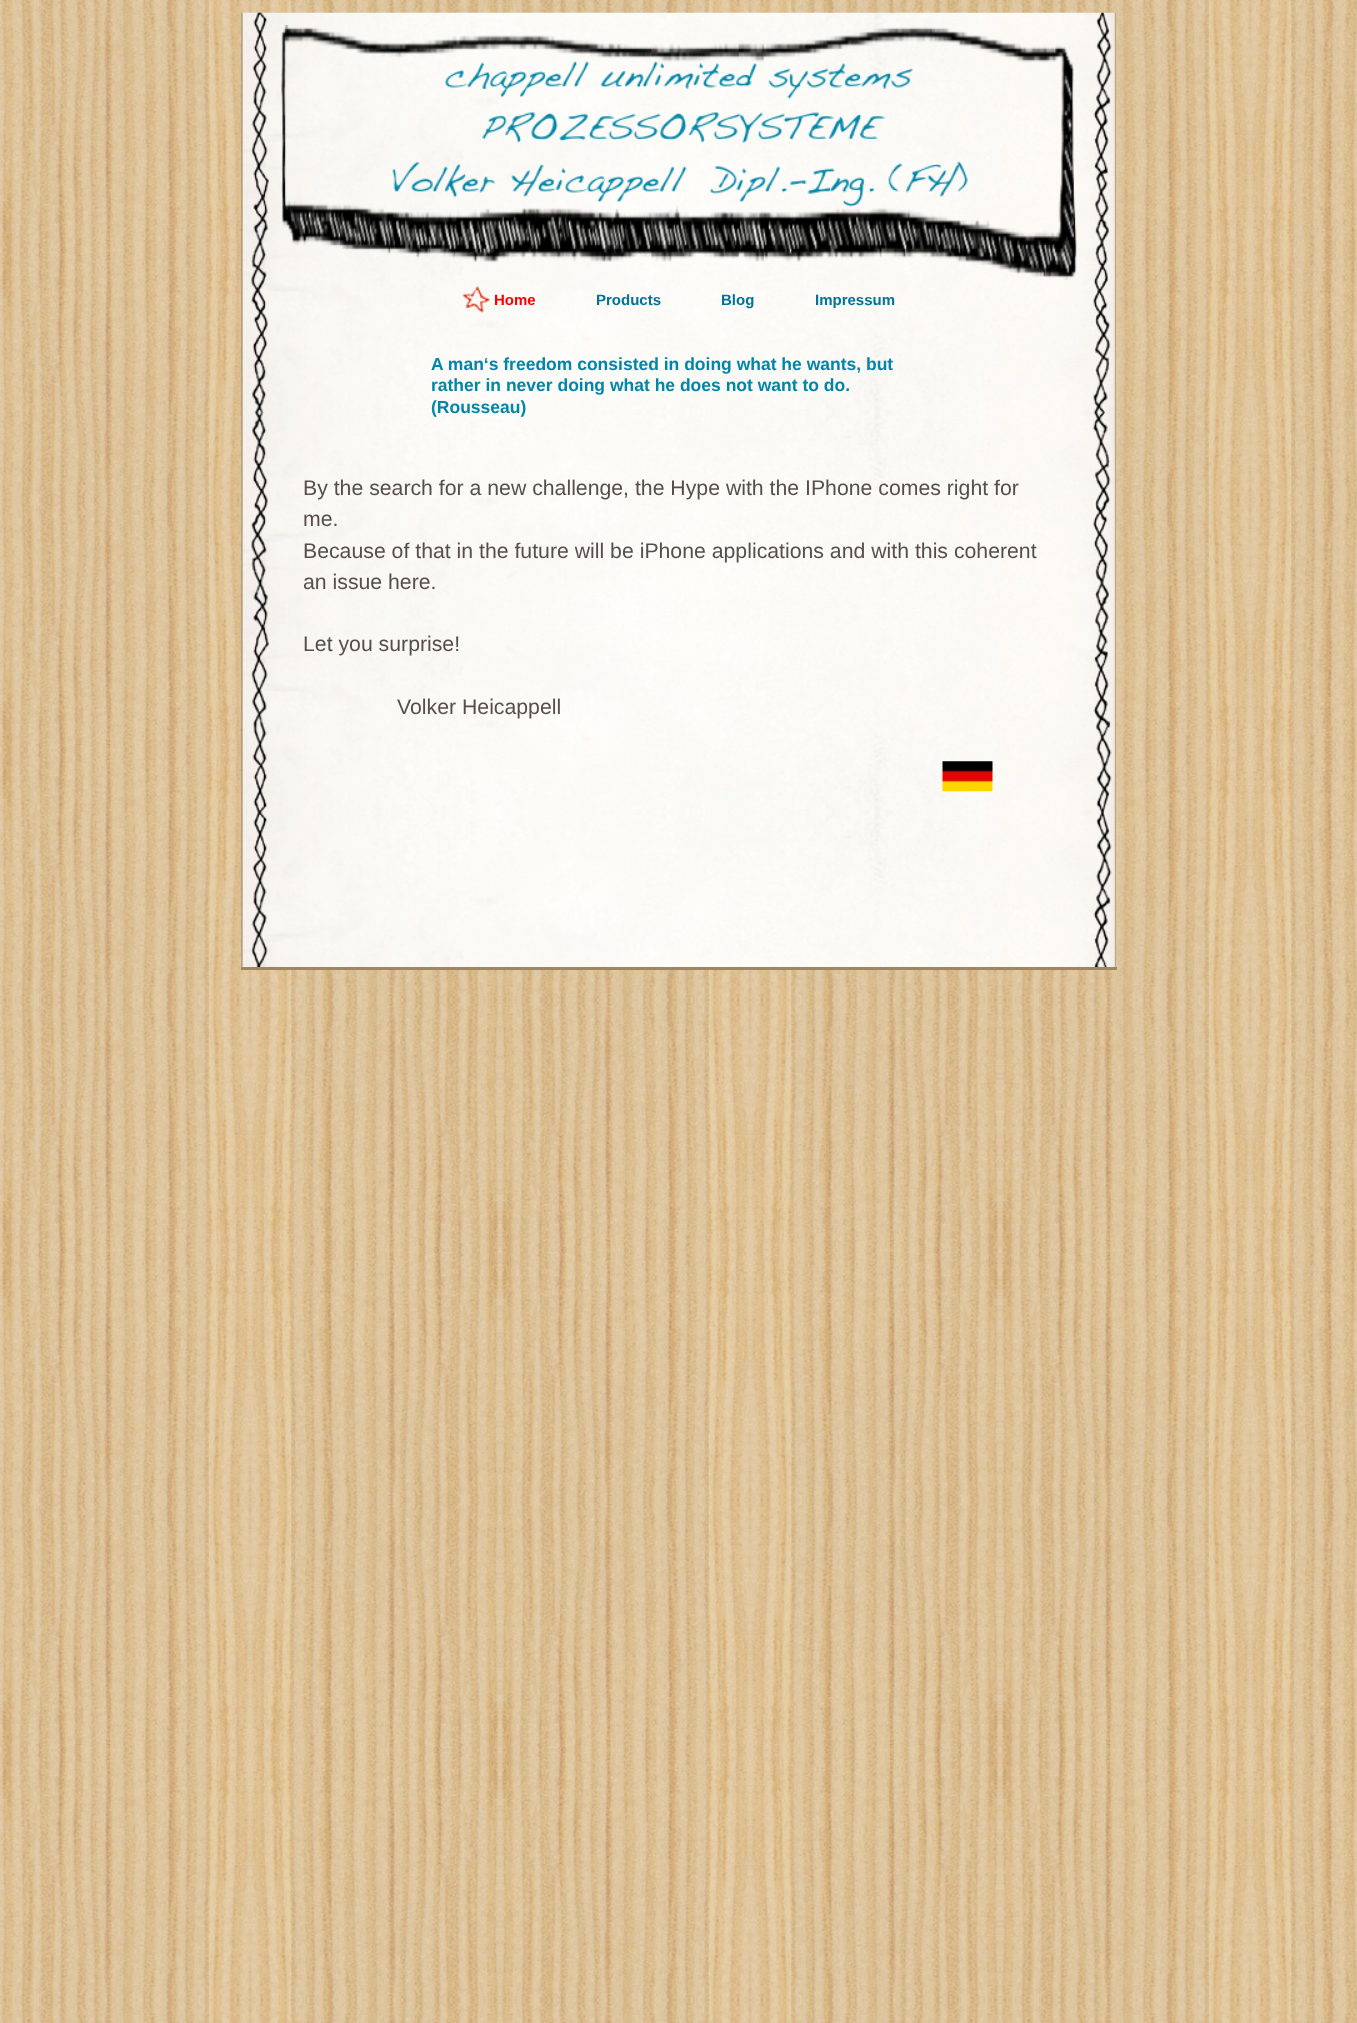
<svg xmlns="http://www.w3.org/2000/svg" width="1357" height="2023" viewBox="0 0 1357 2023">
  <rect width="100%" height="100%" fill="#ffffff"/>
  <image x="0" y="0" width="1357" height="2023" href="img1.png"/>
  <image x="241" y="12" width="875" height="955" href="img2.png"/>
  <image x="281" y="25" width="796" height="255" href="img4.png"/>
  <image x="392" y="61" width="576" height="146" href="img3.png"/>
  <image x="462" y="286" width="28" height="27" href="img5.png"/>
  <text x="494" y="305" font-family="Liberation Sans" font-size="15" font-weight="bold" fill="#ff0000">Home</text>
  <text x="596" y="305" font-family="Liberation Sans" font-size="15" font-weight="bold" fill="#007398">Products</text>
  <text x="721" y="305" font-family="Liberation Sans" font-size="15" font-weight="bold" fill="#007398">Blog</text>
  <text x="815" y="305" font-family="Liberation Sans" font-size="15" font-weight="bold" fill="#007398">Impressum</text>
  <text x="431" y="370" font-family="Liberation Sans" font-size="17.5" font-weight="bold" fill="#0086a9">A man‘s freedom consisted in doing what he wants, but</text>
  <text x="431" y="391" font-family="Liberation Sans" font-size="17.5" font-weight="bold" fill="#0086a9">rather in never doing what he does not want to do.</text>
  <text x="431" y="413" font-family="Liberation Sans" font-size="17.5" font-weight="bold" fill="#0086a9">(Rousseau)</text>
  <text x="303" y="495" font-family="Liberation Sans" font-size="21.25" fill="#584d4d">By the search for a new challenge, the Hype with the IPhone comes right for</text>
  <text x="303" y="526" font-family="Liberation Sans" font-size="21.25" fill="#584d4d">me.</text>
  <text x="303" y="558" font-family="Liberation Sans" font-size="21.25" fill="#584d4d">Because of that in the future will be iPhone applications and with this coherent</text>
  <text x="303" y="589" font-family="Liberation Sans" font-size="21.25" fill="#584d4d">an issue here.</text>
  <text x="303" y="651" font-family="Liberation Sans" font-size="21.25" fill="#584d4d">Let you surprise!</text>
  <text x="397" y="714" font-family="Liberation Sans" font-size="21.25" fill="#584d4d">Volker Heicappell</text>
  <image x="942" y="761" width="51" height="31" href="img6.png"/>
  <rect x="241" y="967" width="876" height="3" fill="#9f8560"/>
</svg>
